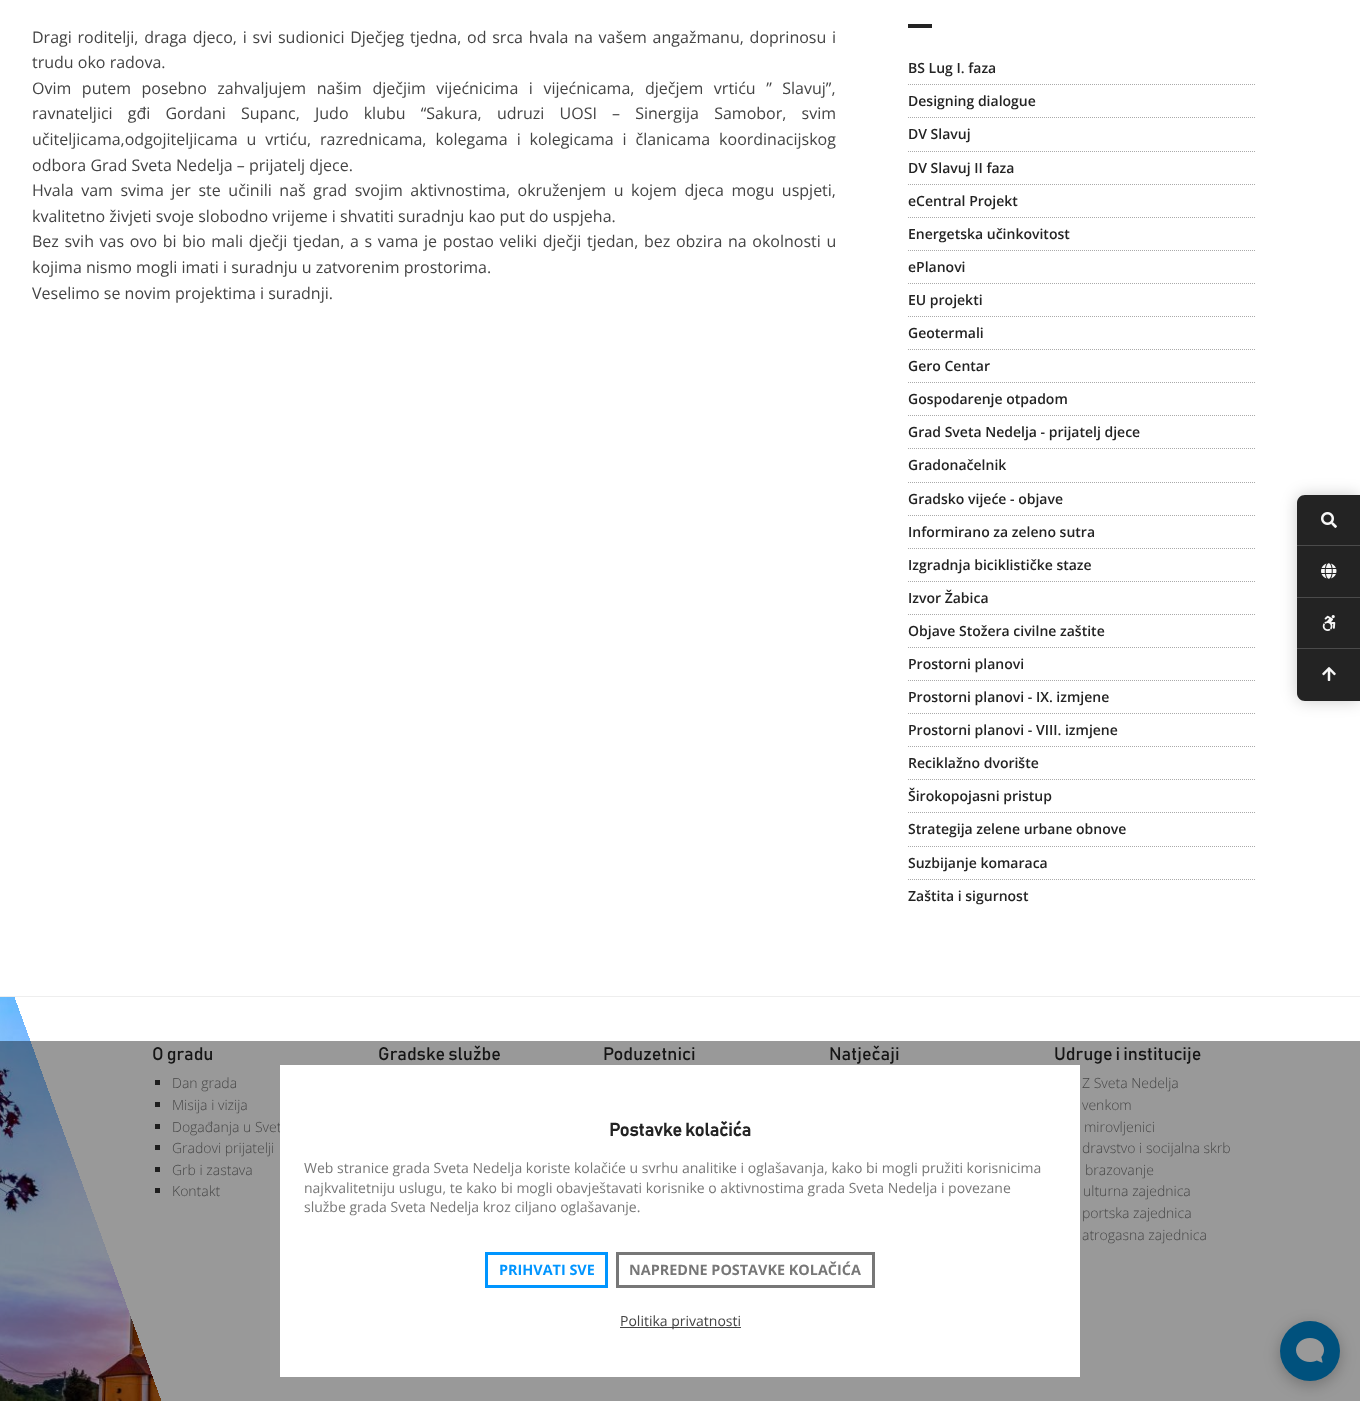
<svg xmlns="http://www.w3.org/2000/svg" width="1360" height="1401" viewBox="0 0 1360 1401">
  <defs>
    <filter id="blur1" x="-50%" y="-200%" width="200%" height="500%"><feGaussianBlur stdDeviation="8"/></filter>
  </defs>
  <rect width="100%" height="100%" fill="#ffffff"/>
  <text x="32" y="43" word-spacing="1.6" font-family="Open Sans" font-size="16" fill="#444444">Dragi roditelji, draga djeco, i svi sudionici Dječjeg tjedna, od srca hvala na vašem angažmanu, doprinosu i</text>
  <text x="32" y="68" font-family="Open Sans" font-size="16" fill="#444444">trudu oko radova.</text>
  <text x="32" y="94" word-spacing="6.4" font-family="Open Sans" font-size="16" fill="#444444">Ovim putem posebno zahvaljujem našim dječjim vijećnicima i vijećnicama, dječjem vrtiću ” Slavuj”,</text>
  <text x="32" y="119" word-spacing="11" font-family="Open Sans" font-size="16" fill="#444444">ravnateljici gđi Gordani Supanc, Judo klubu “Sakura, udruzi UOSI – Sinergija Samobor, svim</text>
  <text x="32" y="145" word-spacing="4.75" font-family="Open Sans" font-size="16" fill="#444444">učiteljicama,odgojiteljicama u vrtiću, razrednicama, kolegama i kolegicama i članicama koordinacijskog</text>
  <text x="32" y="171" font-family="Open Sans" font-size="16" fill="#444444">odbora Grad Sveta Nedelja – prijatelj djece.</text>
  <text x="32" y="196" word-spacing="3.4" font-family="Open Sans" font-size="16" fill="#444444">Hvala vam svima jer ste učinili naš grad svojim aktivnostima, okruženjem u kojem djeca mogu uspjeti,</text>
  <text x="32" y="222" font-family="Open Sans" font-size="16" fill="#444444">kvalitetno živjeti svoje slobodno vrijeme i shvatiti suradnju kao put do uspjeha.</text>
  <text x="32" y="247" word-spacing="1.5" font-family="Open Sans" font-size="16" fill="#444444">Bez svih vas ovo bi bio mali dječji tjedan, a s vama je postao veliki dječji tjedan, bez obzira na okolnosti u</text>
  <text x="32" y="273" font-family="Open Sans" font-size="16" fill="#444444">kojima nismo mogli imati i suradnju u zatvorenim prostorima.</text>
  <text x="32" y="299" font-family="Open Sans" font-size="16" fill="#444444">Veselimo se novim projektima i suradnji.</text>
  <rect x="908" y="24" width="24" height="4" fill="#232323"/>
  <path d="M908 84.5H1256" fill="none" stroke="#aaaaaa" stroke-dasharray="1 1"/>
  <text x="908" y="73" font-family="Open Sans" font-size="14" font-weight="600" fill="#232323">BS Lug I. faza</text>
  <path d="M908 117.5H1256" fill="none" stroke="#aaaaaa" stroke-dasharray="1 1"/>
  <text x="908" y="106" font-family="Open Sans" font-size="14" font-weight="600" fill="#232323">Designing dialogue</text>
  <path d="M908 151.5H1256" fill="none" stroke="#aaaaaa" stroke-dasharray="1 1"/>
  <text x="908" y="139" font-family="Open Sans" font-size="14" font-weight="600" fill="#232323">DV Slavuj</text>
  <path d="M908 184.5H1256" fill="none" stroke="#aaaaaa" stroke-dasharray="1 1"/>
  <text x="908" y="173" font-family="Open Sans" font-size="14" font-weight="600" fill="#232323">DV Slavuj II faza</text>
  <path d="M908 217.5H1256" fill="none" stroke="#aaaaaa" stroke-dasharray="1 1"/>
  <text x="908" y="206" font-family="Open Sans" font-size="14" font-weight="600" fill="#232323">eCentral Projekt</text>
  <path d="M908 250.5H1256" fill="none" stroke="#aaaaaa" stroke-dasharray="1 1"/>
  <text x="908" y="239" font-family="Open Sans" font-size="14" font-weight="600" fill="#232323">Energetska učinkovitost</text>
  <path d="M908 283.5H1256" fill="none" stroke="#aaaaaa" stroke-dasharray="1 1"/>
  <text x="908" y="272" font-family="Open Sans" font-size="14" font-weight="600" fill="#232323">ePlanovi</text>
  <path d="M908 316.5H1256" fill="none" stroke="#aaaaaa" stroke-dasharray="1 1"/>
  <text x="908" y="305" font-family="Open Sans" font-size="14" font-weight="600" fill="#232323">EU projekti</text>
  <path d="M908 349.5H1256" fill="none" stroke="#aaaaaa" stroke-dasharray="1 1"/>
  <text x="908" y="338" font-family="Open Sans" font-size="14" font-weight="600" fill="#232323">Geotermali</text>
  <path d="M908 382.5H1256" fill="none" stroke="#aaaaaa" stroke-dasharray="1 1"/>
  <text x="908" y="371" font-family="Open Sans" font-size="14" font-weight="600" fill="#232323">Gero Centar</text>
  <path d="M908 415.5H1256" fill="none" stroke="#aaaaaa" stroke-dasharray="1 1"/>
  <text x="908" y="404" font-family="Open Sans" font-size="14" font-weight="600" fill="#232323">Gospodarenje otpadom</text>
  <path d="M908 448.5H1256" fill="none" stroke="#aaaaaa" stroke-dasharray="1 1"/>
  <text x="908" y="437" font-family="Open Sans" font-size="14" font-weight="600" fill="#232323">Grad Sveta Nedelja - prijatelj djece</text>
  <path d="M908 482.5H1256" fill="none" stroke="#aaaaaa" stroke-dasharray="1 1"/>
  <text x="908" y="470" font-family="Open Sans" font-size="14" font-weight="600" fill="#232323">Gradonačelnik</text>
  <path d="M908 515.5H1256" fill="none" stroke="#aaaaaa" stroke-dasharray="1 1"/>
  <text x="908" y="504" font-family="Open Sans" font-size="14" font-weight="600" fill="#232323">Gradsko vijeće - objave</text>
  <path d="M908 548.5H1256" fill="none" stroke="#aaaaaa" stroke-dasharray="1 1"/>
  <text x="908" y="537" font-family="Open Sans" font-size="14" font-weight="600" fill="#232323">Informirano za zeleno sutra</text>
  <path d="M908 581.5H1256" fill="none" stroke="#aaaaaa" stroke-dasharray="1 1"/>
  <text x="908" y="570" font-family="Open Sans" font-size="14" font-weight="600" fill="#232323">Izgradnja biciklističke staze</text>
  <path d="M908 614.5H1256" fill="none" stroke="#aaaaaa" stroke-dasharray="1 1"/>
  <text x="908" y="603" font-family="Open Sans" font-size="14" font-weight="600" fill="#232323">Izvor Žabica</text>
  <path d="M908 647.5H1256" fill="none" stroke="#aaaaaa" stroke-dasharray="1 1"/>
  <text x="908" y="636" font-family="Open Sans" font-size="14" font-weight="600" fill="#232323">Objave Stožera civilne zaštite</text>
  <path d="M908 680.5H1256" fill="none" stroke="#aaaaaa" stroke-dasharray="1 1"/>
  <text x="908" y="669" font-family="Open Sans" font-size="14" font-weight="600" fill="#232323">Prostorni planovi</text>
  <path d="M908 713.5H1256" fill="none" stroke="#aaaaaa" stroke-dasharray="1 1"/>
  <text x="908" y="702" font-family="Open Sans" font-size="14" font-weight="600" fill="#232323">Prostorni planovi - IX. izmjene</text>
  <path d="M908 746.5H1256" fill="none" stroke="#aaaaaa" stroke-dasharray="1 1"/>
  <text x="908" y="735" font-family="Open Sans" font-size="14" font-weight="600" fill="#232323">Prostorni planovi - VIII. izmjene</text>
  <path d="M908 779.5H1256" fill="none" stroke="#aaaaaa" stroke-dasharray="1 1"/>
  <text x="908" y="768" font-family="Open Sans" font-size="14" font-weight="600" fill="#232323">Reciklažno dvorište</text>
  <path d="M908 812.5H1256" fill="none" stroke="#aaaaaa" stroke-dasharray="1 1"/>
  <text x="908" y="801" font-family="Open Sans" font-size="14" font-weight="600" fill="#232323">Širokopojasni pristup</text>
  <path d="M908 846.5H1256" fill="none" stroke="#aaaaaa" stroke-dasharray="1 1"/>
  <text x="908" y="834" font-family="Open Sans" font-size="14" font-weight="600" fill="#232323">Strategija zelene urbane obnove</text>
  <path d="M908 879.5H1256" fill="none" stroke="#aaaaaa" stroke-dasharray="1 1"/>
  <text x="908" y="868" font-family="Open Sans" font-size="14" font-weight="600" fill="#232323">Suzbijanje komaraca</text>
  <text x="908" y="901" font-family="Open Sans" font-size="14" font-weight="600" fill="#232323">Zaštita i sigurnost</text>
  <rect x="1297" y="495" width="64" height="206" rx="8" fill="#000000" fill-opacity="0.2" filter="url(#blur1)"/>
  <path d="M1305 495H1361V701H1305C1300.5 701 1297 697.5 1297 693V503C1297 498.5 1300.5 495 1305 495Z" fill="#232323"/>
  <rect x="1297" y="545" width="63" height="1" fill="#4b4b4b"/>
  <image x="1321" y="512" width="16" height="16" href="img1.png"/>
  <rect x="1297" y="597" width="63" height="1" fill="#4b4b4b"/>
  <image x="1321" y="563" width="16" height="16" href="img2.png"/>
  <rect x="1297" y="648" width="63" height="1" fill="#4b4b4b"/>
  <image x="1322" y="615" width="14" height="16" href="img3.png"/>
  <image x="1322" y="667" width="14" height="14" href="img4.png"/>
  <rect x="0" y="996" width="1360" height="1" fill="#eeeeee"/>
  <image x="0" y="997" width="408" height="404" href="img5.png"/>
  <text x="152" y="1060" font-family="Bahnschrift" font-size="18" fill="#232323">O gradu</text>
  <rect x="155" y="1080" width="5" height="5" fill="#333333"/>
  <text x="172" y="1088" font-family="Open Sans" font-size="14" font-weight="300" fill="#777777">Dan grada</text>
  <rect x="155" y="1102" width="5" height="5" fill="#333333"/>
  <text x="172" y="1110" font-family="Open Sans" font-size="14" font-weight="300" fill="#777777">Misija i vizija</text>
  <rect x="155" y="1124" width="5" height="5" fill="#333333"/>
  <text x="172" y="1132" font-family="Open Sans" font-size="14" font-weight="300" fill="#777777">Događanja u Svet</text>
  <rect x="155" y="1145" width="5" height="5" fill="#333333"/>
  <text x="172" y="1153" font-family="Open Sans" font-size="14" font-weight="300" fill="#777777">Gradovi prijatelji</text>
  <rect x="155" y="1167" width="5" height="5" fill="#333333"/>
  <text x="172" y="1175" font-family="Open Sans" font-size="14" font-weight="300" fill="#777777">Grb i zastava</text>
  <rect x="155" y="1188" width="5" height="5" fill="#333333"/>
  <text x="172" y="1196" font-family="Open Sans" font-size="14" font-weight="300" fill="#777777">Kontakt</text>
  <text x="378" y="1060" font-family="Bahnschrift" font-size="18" fill="#232323">Gradske službe</text>
  <text x="603" y="1060" font-family="Bahnschrift" font-size="18" fill="#232323">Poduzetnici</text>
  <text x="829" y="1060" font-family="Bahnschrift" font-size="18" fill="#232323">Natječaji</text>
  <text x="1054" y="1060" font-family="Bahnschrift" font-size="18" fill="#232323">Udruge i institucije</text>
  <text x="1082" y="1088" font-family="Open Sans" font-size="14" font-weight="300" fill="#777777">Z Sveta Nedelja</text>
  <text x="1082" y="1110" font-family="Open Sans" font-size="14" font-weight="300" fill="#777777">venkom</text>
  <text x="1084" y="1132" font-family="Open Sans" font-size="14" font-weight="300" fill="#777777">mirovljenici</text>
  <text x="1082" y="1153" font-family="Open Sans" font-size="14" font-weight="300" fill="#777777">dravstvo i socijalna skrb</text>
  <text x="1085" y="1175" font-family="Open Sans" font-size="14" font-weight="300" fill="#777777">brazovanje</text>
  <text x="1083" y="1196" font-family="Open Sans" font-size="14" font-weight="300" fill="#777777">ulturna zajednica</text>
  <text x="1082" y="1218" font-family="Open Sans" font-size="14" font-weight="300" fill="#777777">portska zajednica</text>
  <text x="1082" y="1240" font-family="Open Sans" font-size="14" font-weight="300" fill="#777777">atrogasna zajednica</text>
  <rect x="1280" y="1325" width="60" height="60" rx="30" fill="#000000" fill-opacity="0.25" filter="url(#blur1)"/>
  <circle cx="1310" cy="1351" r="30" fill="#0088d1"/>
  <image x="1296" y="1338" width="28" height="25" href="img6.png"/>
  <rect x="0" y="1041" width="1360" height="360" fill="#000000" fill-opacity="0.4"/>
  <rect x="280" y="1065" width="800" height="312" fill="#ffffff"/>
  <text x="609" y="1136" font-family="Bahnschrift" font-size="18" font-weight="bold" fill="#232323">Postavke kolačića</text>
  <text x="304" y="1173" font-family="Open Sans" font-size="14" fill="#777777">Web stranice grada Sveta Nedelja koriste kolačiće u svrhu analitike i oglašavanja, kako bi mogli pružiti korisnicima</text>
  <text x="304" y="1193" font-family="Open Sans" font-size="14" fill="#777777">najkvalitetniju uslugu, te kako bi mogli obavještavati korisnike o aktivnostima grada Sveta Nedelja i povezane</text>
  <text x="304" y="1212" font-family="Open Sans" font-size="14" fill="#777777">službe grada Sveta Nedelja kroz ciljano oglašavanje.</text>
  <rect x="486.5" y="1253.5" width="120" height="33" fill="none" stroke="#0095ff" stroke-width="3"/>
  <text x="499" y="1275" font-family="Open Sans" font-size="14.4" font-weight="bold" fill="#0095ff">PRIHVATI SVE</text>
  <rect x="617.5" y="1253.5" width="256" height="33" fill="none" stroke="#777777" stroke-width="3"/>
  <text x="629" y="1275" font-family="Open Sans" font-size="14.4" font-weight="bold" fill="#777777">NAPREDNE POSTAVKE KOLAČIĆA</text>
  <rect x="620" y="1327" width="121" height="1" fill="#444444"/>
  <text x="620" y="1326" font-family="Open Sans" font-size="14" fill="#444444">Politika privatnosti</text>
</svg>
